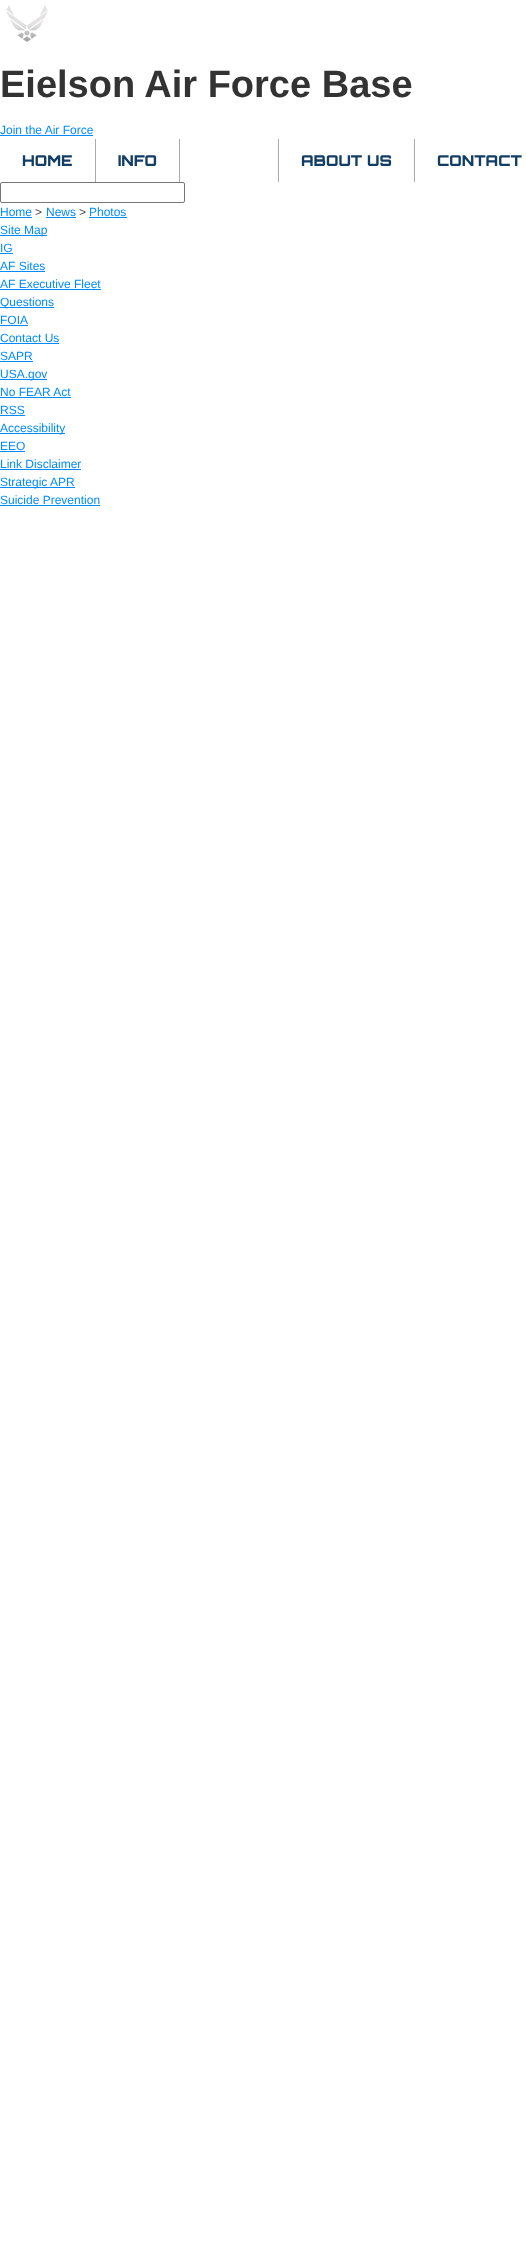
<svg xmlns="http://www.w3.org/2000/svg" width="526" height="2259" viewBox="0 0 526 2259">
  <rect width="100%" height="100%" fill="#ffffff"/>
  <image x="6" y="5" width="42" height="37" href="img1.png"/>
  <text x="0" y="97" font-family="Liberation Sans" font-size="38" font-weight="bold" fill="#333333">Eielson Air Force Base</text>
  <text x="0" y="134" font-family="Liberation Sans" font-size="12" fill="#028bff">Join the Air Force</text>
  <rect x="0" y="135" width="93" height="1" fill="#028bff"/>
  <rect x="95" y="139" width="1" height="43" fill="#ababab"/>
  <text x="22" y="166" font-family="Orbitron" font-size="15" font-weight="900" fill="#123d64">HOME</text>
  <rect x="179" y="139" width="1" height="43" fill="#ababab"/>
  <text x="118" y="166" font-family="Orbitron" font-size="15" font-weight="900" fill="#123d64">INFO</text>
  <rect x="278" y="139" width="1" height="43" fill="#ababab"/>
  <rect x="414" y="139" width="1" height="43" fill="#ababab"/>
  <text x="301" y="166" font-family="Orbitron" font-size="15" font-weight="900" fill="#123d64">ABOUT US</text>
  <text x="437" y="166" font-family="Orbitron" font-size="15" font-weight="900" fill="#123d64">CONTACT</text>
  <rect x="0.5" y="182.5" width="184" height="20" rx="1.5" fill="none" stroke="#767676"/>
  <text x="0" y="216" font-family="Liberation Sans" font-size="12" fill="#028bff">Home</text>
  <rect x="0" y="217" width="32" height="1" fill="#028bff"/>
  <text x="35" y="216" font-family="Liberation Sans" font-size="12" fill="#444444">&gt;</text>
  <text x="46" y="216" font-family="Liberation Sans" font-size="12" fill="#028bff">News</text>
  <rect x="46" y="217" width="30" height="1" fill="#028bff"/>
  <text x="79" y="216" font-family="Liberation Sans" font-size="12" fill="#444444">&gt;</text>
  <text x="89" y="216" font-family="Liberation Sans" font-size="12" fill="#028bff">Photos</text>
  <rect x="89" y="217" width="38" height="1" fill="#028bff"/>
  <rect x="0" y="235" width="47" height="1" fill="#028bff"/>
  <text x="0" y="234" font-family="Liberation Sans" font-size="12" fill="#028bff">Site Map</text>
  <text x="0" y="252" font-family="Liberation Sans" font-size="12" fill="#028bff">IG</text>
  <rect x="0" y="253" width="13" height="1" fill="#028bff"/>
  <text x="0" y="270" font-family="Liberation Sans" font-size="12" fill="#028bff">AF Sites</text>
  <rect x="0" y="271" width="45" height="1" fill="#028bff"/>
  <text x="0" y="288" font-family="Liberation Sans" font-size="12" fill="#028bff">AF Executive Fleet</text>
  <rect x="0" y="289" width="101" height="1" fill="#028bff"/>
  <rect x="0" y="307" width="54" height="1" fill="#028bff"/>
  <text x="0" y="306" font-family="Liberation Sans" font-size="12" fill="#028bff">Questions</text>
  <text x="0" y="324" font-family="Liberation Sans" font-size="12" fill="#028bff">FOIA</text>
  <rect x="0" y="325" width="28" height="1" fill="#028bff"/>
  <text x="0" y="342" font-family="Liberation Sans" font-size="12" fill="#028bff">Contact Us</text>
  <rect x="0" y="343" width="59" height="1" fill="#028bff"/>
  <text x="0" y="360" font-family="Liberation Sans" font-size="12" fill="#028bff">SAPR</text>
  <rect x="0" y="361" width="33" height="1" fill="#028bff"/>
  <rect x="0" y="379" width="47" height="1" fill="#028bff"/>
  <text x="0" y="378" font-family="Liberation Sans" font-size="12" fill="#028bff">USA.gov</text>
  <text x="0" y="396" font-family="Liberation Sans" font-size="12" fill="#028bff">No FEAR Act</text>
  <rect x="0" y="397" width="71" height="1" fill="#028bff"/>
  <text x="0" y="414" font-family="Liberation Sans" font-size="12" fill="#028bff">RSS</text>
  <rect x="0" y="415" width="25" height="1" fill="#028bff"/>
  <rect x="0" y="433" width="65" height="1" fill="#028bff"/>
  <text x="0" y="432" font-family="Liberation Sans" font-size="12" fill="#028bff">Accessibility</text>
  <text x="0" y="450" font-family="Liberation Sans" font-size="12" fill="#028bff">EEO</text>
  <rect x="0" y="451" width="25" height="1" fill="#028bff"/>
  <text x="0" y="468" font-family="Liberation Sans" font-size="12" fill="#028bff">Link Disclaimer</text>
  <rect x="0" y="469" width="81" height="1" fill="#028bff"/>
  <rect x="0" y="487" width="75" height="1" fill="#028bff"/>
  <text x="0" y="486" font-family="Liberation Sans" font-size="12" fill="#028bff">Strategic APR</text>
  <text x="0" y="504" font-family="Liberation Sans" font-size="12" fill="#028bff">Suicide Prevention</text>
  <rect x="0" y="505" width="100" height="1" fill="#028bff"/>
</svg>
